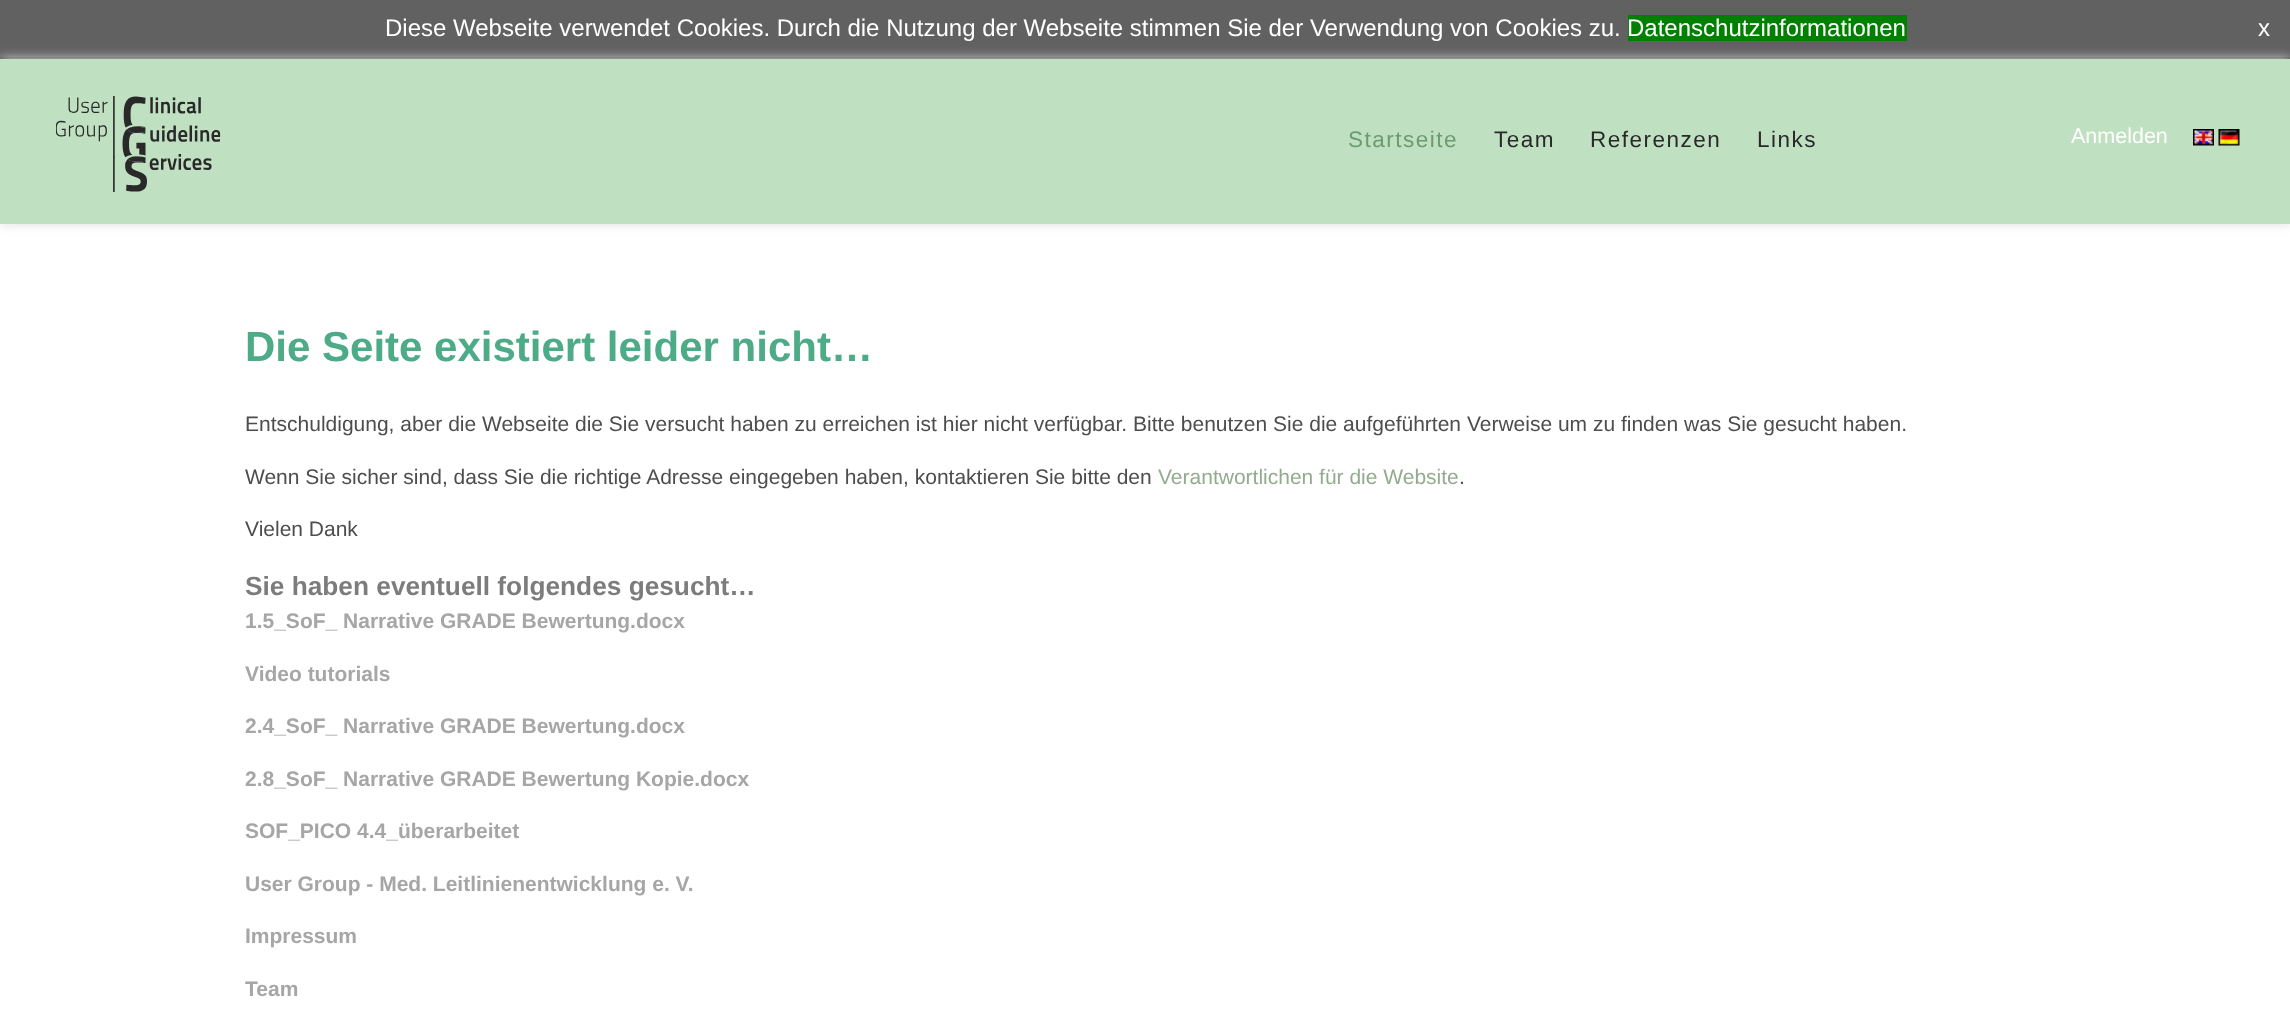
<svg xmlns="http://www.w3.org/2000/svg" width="2290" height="1009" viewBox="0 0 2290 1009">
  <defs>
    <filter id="blur1" x="-50%" y="-200%" width="200%" height="500%"><feGaussianBlur stdDeviation="6"/></filter>
  </defs>
  <rect width="100%" height="100%" fill="#ffffff"/>
  <rect x="0" y="0" width="2290" height="57" fill="#616161"/>
  <rect x="0" y="57" width="2290" height="2" fill="#4d4d4d"/>
  <text x="385" y="36" font-family="Liberation Sans" font-size="24" fill="#ffffff">Diese Webseite verwendet Cookies. Durch die Nutzung der Webseite stimmen Sie der Verwendung von Cookies zu.</text>
  <rect x="1628" y="15" width="279" height="26" fill="#008000"/>
  <text x="1627" y="36" font-family="Liberation Sans" font-size="24" fill="#ffffff">Datenschutzinformationen</text>
  <text x="2258" y="36" font-family="Liberation Sans" font-size="24" fill="#ffffff">x</text>
  <rect x="0" y="59" width="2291" height="165" fill="#dedede" filter="url(#blur1)"/>
  <rect x="0" y="59" width="2290" height="165" fill="#c0e0c2"/>
  <image x="56" y="96" width="165" height="96" href="img1.png"/>
  <text x="1348" y="147" font-family="Liberation Sans" font-size="22.5" letter-spacing="1.5" fill="#6b9b6f">Startseite</text>
  <text x="1494" y="147" font-family="Liberation Sans" font-size="22.5" letter-spacing="1.5" fill="#292929">Team</text>
  <text x="1590" y="147" font-family="Liberation Sans" font-size="22.5" letter-spacing="1.5" fill="#292929">Referenzen</text>
  <text x="1757" y="147" font-family="Liberation Sans" font-size="22.5" letter-spacing="1.5" fill="#292929">Links</text>
  <text x="2071" y="143" font-family="Liberation Sans" font-size="21.5" fill="#ffffff">Anmelden</text>
  <image x="2193" y="129" width="21" height="17" href="img2.png"/>
  <image x="2218" y="129" width="22" height="17" href="img3.png"/>
  <text x="245" y="361" font-family="Liberation Sans" font-size="42" font-weight="bold" fill="#4dab87">Die Seite existiert leider nicht…</text>
  <text x="245" y="431" font-family="Liberation Sans" font-size="21" fill="#4d4d4d">Entschuldigung, aber die Webseite die Sie versucht haben zu erreichen ist hier nicht verfügbar. Bitte benutzen Sie die aufgeführten Verweise um zu finden was Sie gesucht haben.</text>
  <text x="245" y="484" font-family="Liberation Sans" font-size="21" fill="#4d4d4d">Wenn Sie sicher sind, dass Sie die richtige Adresse eingegeben haben, kontaktieren Sie bitte den</text>
  <text x="1158" y="484" font-family="Liberation Sans" font-size="21" fill="#93ab8e">Verantwortlichen für die Website</text>
  <text x="1459" y="484" font-family="Liberation Sans" font-size="21" fill="#4d4d4d">.</text>
  <text x="245" y="536" font-family="Liberation Sans" font-size="21" fill="#4d4d4d">Vielen Dank</text>
  <text x="245" y="595" font-family="Liberation Sans" font-size="26.25" font-weight="bold" fill="#7c7c7c">Sie haben eventuell folgendes gesucht…</text>
  <text x="245" y="628" font-family="Liberation Sans" font-size="21" font-weight="bold" fill="#a6a6a6">1.5_SoF_ Narrative GRADE Bewertung.docx</text>
  <text x="245" y="681" font-family="Liberation Sans" font-size="21" font-weight="bold" fill="#a6a6a6">Video tutorials</text>
  <text x="245" y="733" font-family="Liberation Sans" font-size="21" font-weight="bold" fill="#a6a6a6">2.4_SoF_ Narrative GRADE Bewertung.docx</text>
  <text x="245" y="786" font-family="Liberation Sans" font-size="21" font-weight="bold" fill="#a6a6a6">2.8_SoF_ Narrative GRADE Bewertung Kopie.docx</text>
  <text x="245" y="838" font-family="Liberation Sans" font-size="21" font-weight="bold" fill="#a6a6a6">SOF_PICO 4.4_überarbeitet</text>
  <text x="245" y="891" font-family="Liberation Sans" font-size="21" font-weight="bold" fill="#a6a6a6">User Group - Med. Leitlinienentwicklung e. V.</text>
  <text x="245" y="943" font-family="Liberation Sans" font-size="21" font-weight="bold" fill="#a6a6a6">Impressum</text>
  <text x="245" y="996" font-family="Liberation Sans" font-size="21" font-weight="bold" fill="#a6a6a6">Team</text>
</svg>
